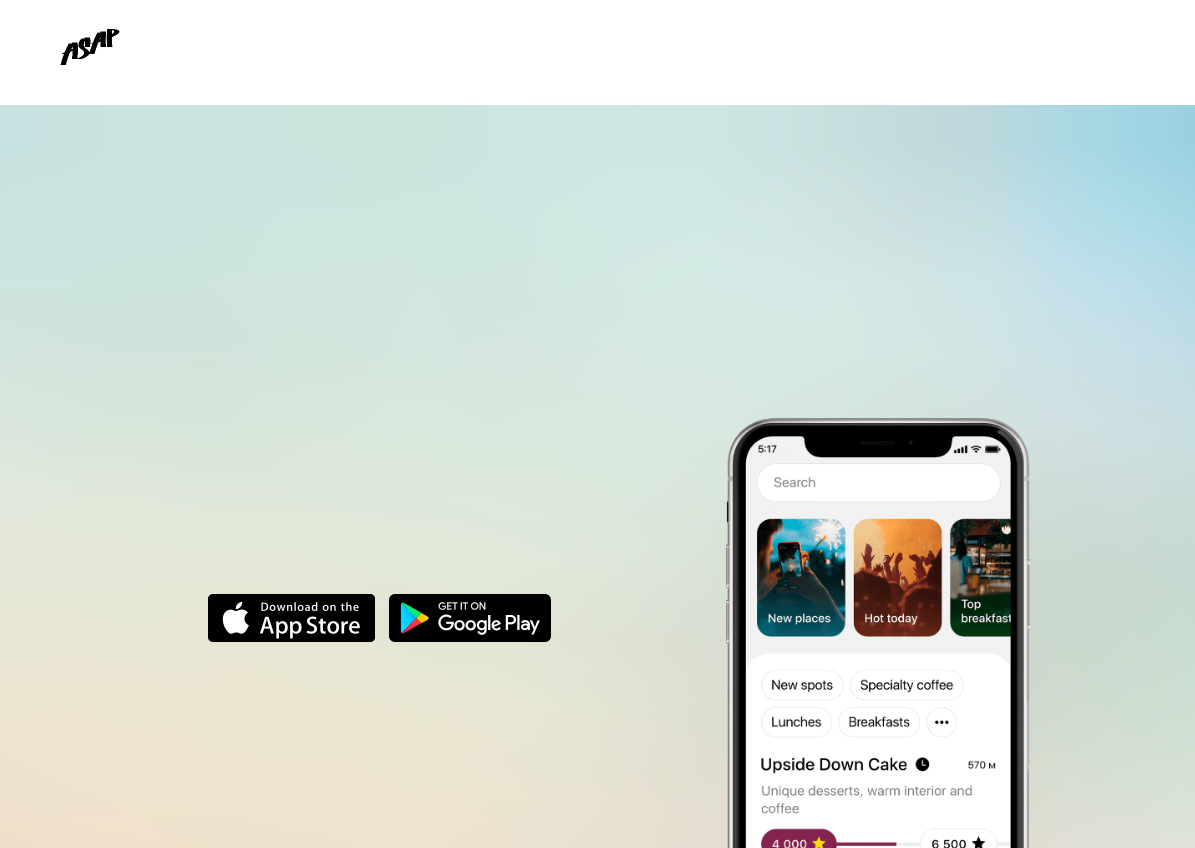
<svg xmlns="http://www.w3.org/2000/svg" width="1195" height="848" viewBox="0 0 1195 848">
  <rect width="100%" height="100%" fill="#ffffff"/>
  <image x="60" y="29" width="60" height="36" href="img1.png"/>
  <image x="0" y="105" width="1195" height="743" href="img2.png"/>
  <image x="208" y="594" width="167" height="48" href="img3.png"/>
  <image x="389" y="594" width="162" height="48" href="img4.png"/>
  <image x="726" y="418" width="304" height="430" href="img5.png"/>
</svg>
